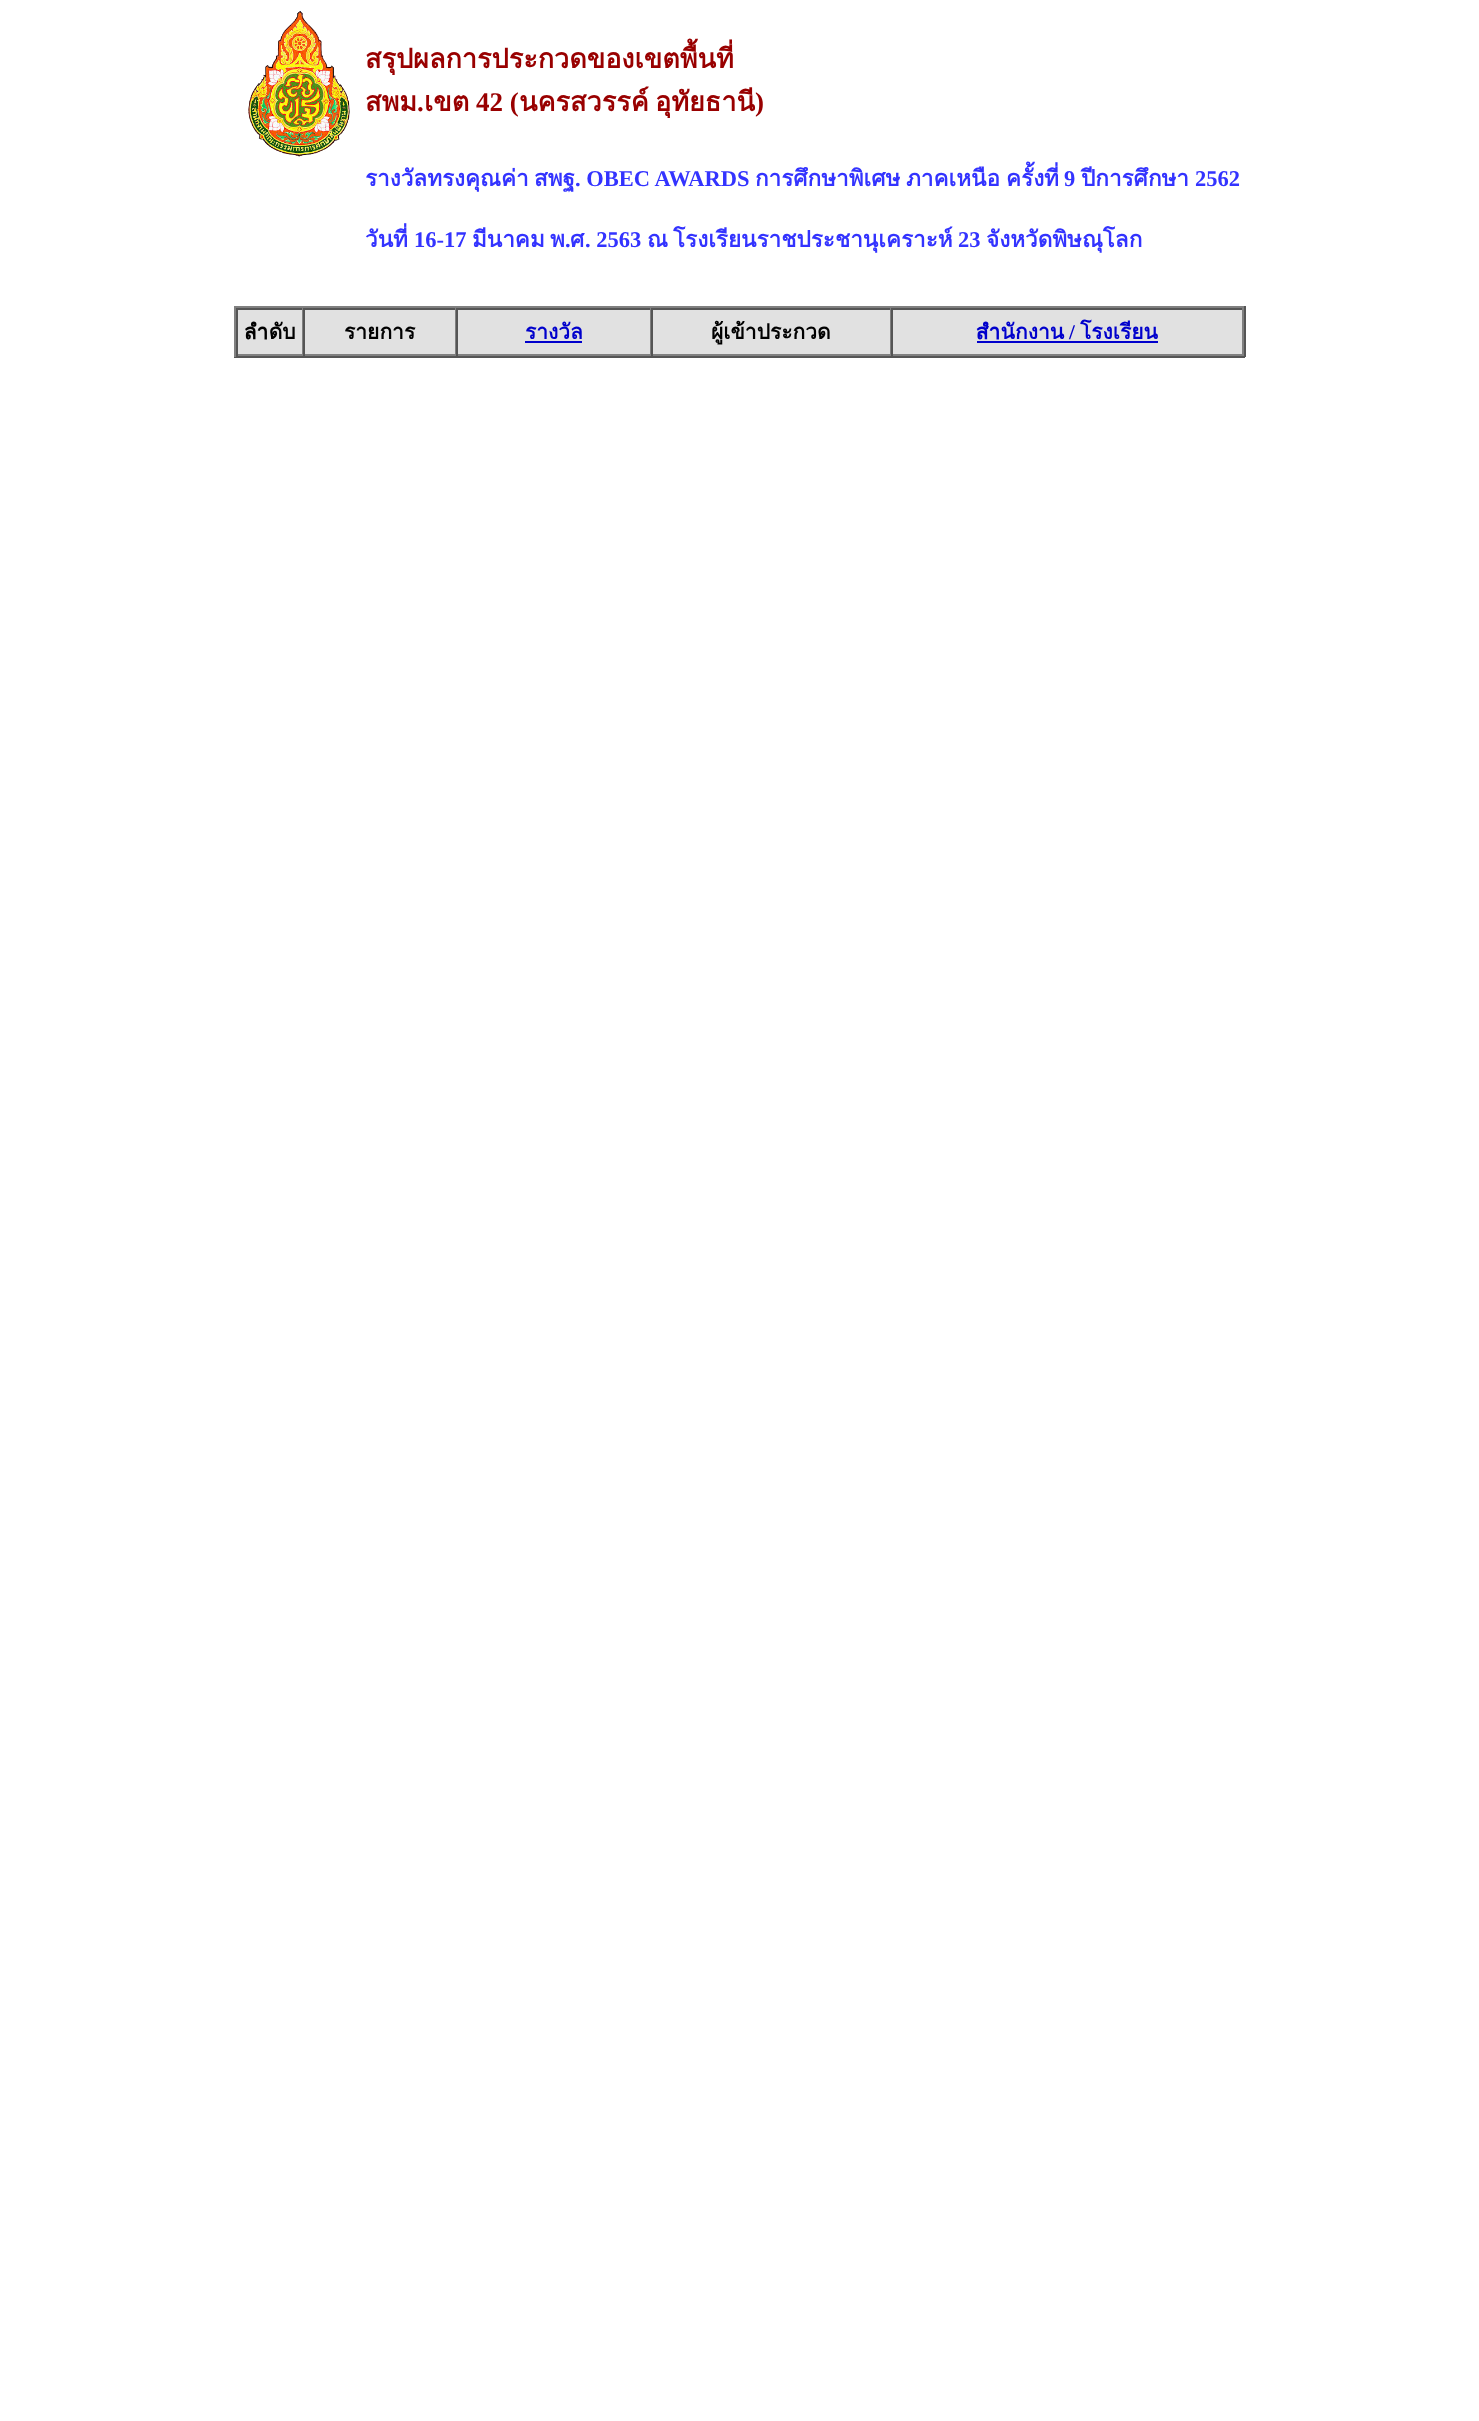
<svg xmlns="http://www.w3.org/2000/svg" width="1479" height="2421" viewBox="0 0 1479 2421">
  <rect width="100%" height="100%" fill="#ffffff"/>
  <image x="248" y="11" width="102" height="146" href="img1.png"/>
  <text x="365" y="68" font-family="Loma" font-size="27" font-weight="bold" fill="#990000">สรุปผลการประกวดของเขตพื้นที่</text>
  <text x="365" y="111" font-family="Loma" font-size="27" font-weight="bold" fill="#990000">สพม</text>
  <text x="417" y="111" font-family="Liberation Serif" font-size="27" font-weight="bold" fill="#990000">.</text>
  <text x="424" y="111" font-family="Loma" font-size="27" font-weight="bold" fill="#990000">เขต</text>
  <text x="476" y="111" font-family="Liberation Serif" font-size="27" font-weight="bold" fill="#990000">42 (</text>
  <text x="519" y="111" font-family="Loma" font-size="27" font-weight="bold" fill="#990000">นครสวรรค์</text>
  <text x="655" y="111" font-family="Loma" font-size="27" font-weight="bold" fill="#990000">อุทัยธานี</text>
  <text x="755" y="111" font-family="Liberation Serif" font-size="27" font-weight="bold" fill="#990000">)</text>
  <text x="365" y="186" font-family="Loma" font-size="22.5" font-weight="bold" fill="#3333ff">รางวัลทรงคุณค่า</text>
  <text x="534" y="186" font-family="Loma" font-size="22.5" font-weight="bold" fill="#3333ff">สพฐ</text>
  <text x="575" y="186" font-family="Liberation Serif" font-size="22.5" font-weight="bold" fill="#3333ff">. OBEC AWARDS</text>
  <text x="755" y="186" font-family="Loma" font-size="22.5" font-weight="bold" fill="#3333ff">การศึกษาพิเศษ</text>
  <text x="906" y="186" font-family="Loma" font-size="22.5" font-weight="bold" fill="#3333ff">ภาคเหนือ</text>
  <text x="1006" y="186" font-family="Loma" font-size="22.5" font-weight="bold" fill="#3333ff">ครั้งที่</text>
  <text x="1064" y="186" font-family="Liberation Serif" font-size="22.5" font-weight="bold" fill="#3333ff">9</text>
  <text x="1081" y="186" font-family="Loma" font-size="22.5" font-weight="bold" fill="#3333ff">ปีการศึกษา</text>
  <text x="1195" y="186" font-family="Liberation Serif" font-size="22.5" font-weight="bold" fill="#3333ff">2562</text>
  <text x="365" y="247" font-family="Loma" font-size="22.5" font-weight="bold" fill="#3333ff">วันที่</text>
  <text x="414" y="247" font-family="Liberation Serif" font-size="22.5" font-weight="bold" fill="#3333ff">16-17</text>
  <text x="472" y="247" font-family="Loma" font-size="22.5" font-weight="bold" fill="#3333ff">มีนาคม</text>
  <text x="550" y="247" font-family="Loma" font-size="22.5" font-weight="bold" fill="#3333ff">พ</text>
  <text x="565" y="247" font-family="Liberation Serif" font-size="22.5" font-weight="bold" fill="#3333ff">.</text>
  <text x="570" y="247" font-family="Loma" font-size="22.5" font-weight="bold" fill="#3333ff">ศ</text>
  <text x="585" y="247" font-family="Liberation Serif" font-size="22.5" font-weight="bold" fill="#3333ff">. 2563</text>
  <text x="647" y="247" font-family="Loma" font-size="22.5" font-weight="bold" fill="#3333ff">ณ</text>
  <text x="673" y="247" font-family="Loma" font-size="22.5" font-weight="bold" fill="#3333ff">โรงเรียนราชประชานุเคราะห์</text>
  <text x="958" y="247" font-family="Liberation Serif" font-size="22.5" font-weight="bold" fill="#3333ff">23</text>
  <text x="986" y="247" font-family="Loma" font-size="22.5" font-weight="bold" fill="#3333ff">จังหวัดพิษณุโลก</text>
  <rect x="234" y="306" width="1011" height="2" fill="#808080"/>
  <rect x="1244" y="306" width="2" height="51" fill="#555555"/>
  <rect x="234" y="356" width="1011" height="2" fill="#555555"/>
  <rect x="234" y="306" width="2" height="51" fill="#808080"/>
  <rect x="238" y="310" width="64" height="44" fill="#e1e1e1"/>
  <rect x="236" y="308" width="1008" height="2" fill="#555555"/>
  <rect x="302" y="308" width="1" height="48" fill="#808080"/>
  <rect x="236" y="354" width="67" height="2" fill="#808080"/>
  <rect x="236" y="308" width="2" height="48" fill="#555555"/>
  <text x="244" y="339" font-family="Loma" font-size="21" font-weight="bold" fill="#000000">ลำดับ</text>
  <rect x="305" y="310" width="150" height="44" fill="#e1e1e1"/>
  <rect x="455" y="308" width="1" height="48" fill="#808080"/>
  <rect x="303" y="354" width="153" height="2" fill="#808080"/>
  <rect x="303" y="308" width="2" height="48" fill="#555555"/>
  <text x="344" y="339" font-family="Loma" font-size="21" font-weight="bold" fill="#000000">รายการ</text>
  <rect x="458" y="310" width="192" height="44" fill="#e1e1e1"/>
  <rect x="650" y="308" width="1" height="48" fill="#808080"/>
  <rect x="456" y="354" width="195" height="2" fill="#808080"/>
  <rect x="456" y="308" width="2" height="48" fill="#555555"/>
  <text x="525" y="339" font-family="Loma" font-size="21" font-weight="bold" fill="#0000cc">รางวัล</text>
  <rect x="525" y="341" width="57" height="2" fill="#0000cc"/>
  <rect x="653" y="310" width="237" height="44" fill="#e1e1e1"/>
  <rect x="890" y="308" width="1" height="48" fill="#808080"/>
  <rect x="651" y="354" width="240" height="2" fill="#808080"/>
  <rect x="651" y="308" width="2" height="48" fill="#555555"/>
  <text x="711" y="339" font-family="Loma" font-size="21" font-weight="bold" fill="#000000">ผู้เข้าประกวด</text>
  <rect x="893" y="310" width="349" height="44" fill="#e1e1e1"/>
  <rect x="1242" y="308" width="2" height="48" fill="#808080"/>
  <rect x="891" y="354" width="353" height="2" fill="#808080"/>
  <rect x="891" y="308" width="2" height="48" fill="#555555"/>
  <text x="976" y="339" font-family="Loma" font-size="21" font-weight="bold" fill="#0000cc">สำนักงาน</text>
  <text x="1069" y="339" font-family="Liberation Serif" font-size="21" font-weight="bold" fill="#0000cc">/</text>
  <rect x="977" y="341" width="181" height="2" fill="#0000cc"/>
  <text x="1080" y="339" font-family="Loma" font-size="21" font-weight="bold" fill="#0000cc">โรงเรียน</text>
</svg>
